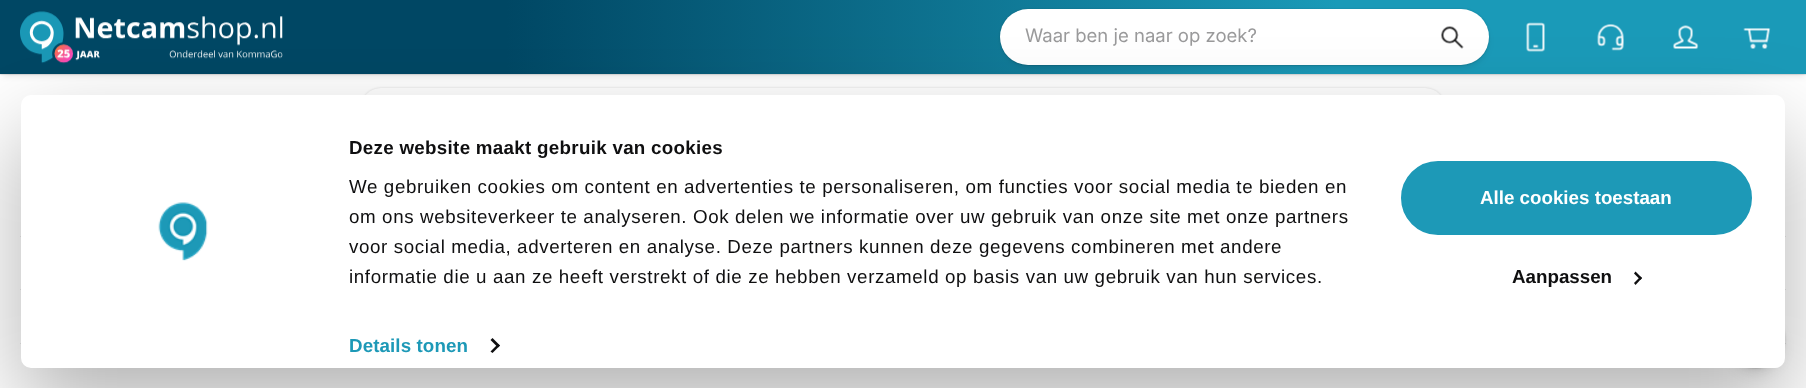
<svg xmlns="http://www.w3.org/2000/svg" width="1806" height="388" viewBox="0 0 1806 388">
  <defs>
    <filter id="blur1" x="-50%" y="-200%" width="200%" height="500%"><feGaussianBlur stdDeviation="3"/></filter>
    <filter id="blur2" x="-50%" y="-200%" width="200%" height="500%"><feGaussianBlur stdDeviation="0.5"/></filter>
    <filter id="blur3" x="-50%" y="-200%" width="200%" height="500%"><feGaussianBlur stdDeviation="1"/></filter>
    <linearGradient id="g1" gradientUnits="userSpaceOnUse" x1="0" y1="37" x2="1806" y2="37"><stop offset="0.28" stop-color="#004764"/><stop offset="0.74" stop-color="#1a9ab8"/></linearGradient>
    <filter id="blur4" x="-50%" y="-200%" width="200%" height="500%"><feGaussianBlur stdDeviation="6"/></filter>
    <filter id="blur5" x="-50%" y="-200%" width="200%" height="500%"><feGaussianBlur stdDeviation="2"/></filter>
    <filter id="blur6" x="-50%" y="-200%" width="200%" height="500%"><feGaussianBlur stdDeviation="44"/></filter>
  </defs>
  <rect width="100%" height="100%" fill="#ffffff"/>
  <rect x="3" y="6" width="1802" height="70" fill="#000000" fill-opacity="0.09" filter="url(#blur1)"/>
  <rect x="0" y="1" width="1806" height="74" fill="#000000" fill-opacity="0.06" filter="url(#blur2)"/>
  <rect x="0" y="0" width="1806" height="74" fill="#000000" fill-opacity="0.15" filter="url(#blur3)"/>
  <rect x="0" y="0" width="1806" height="74" fill="url(#g1)"/>
  <image x="20" y="11" width="263" height="53" href="img1.png"/>
  <rect x="1003" y="15" width="485" height="53" rx="26.5" fill="#000000" fill-opacity="0.09" filter="url(#blur1)"/>
  <rect x="1000" y="10" width="489" height="56" rx="28" fill="#000000" fill-opacity="0.06" filter="url(#blur2)"/>
  <rect x="1000" y="9" width="489" height="56" rx="28" fill="#000000" fill-opacity="0.15" filter="url(#blur3)"/>
  <rect x="1000" y="9" width="489" height="56" rx="28" fill="#ffffff"/>
  <text x="1025" y="42" font-family="Inter" font-size="18.5" fill="#9a9a9b">Waar ben je naar op zoek?</text>
  <image x="1441" y="26" width="23" height="23" href="img2.png"/>
  <image x="1526" y="22" width="19" height="30" href="img3.png"/>
  <image x="1597" y="24" width="27" height="27" href="img4.png"/>
  <image x="1673" y="25" width="26" height="24" href="img5.png"/>
  <image x="1743" y="28" width="28" height="21" href="img6.png"/>
  <rect x="361" y="88" width="1084" height="73" rx="20" fill="#000000" fill-opacity="0.15" filter="url(#blur3)"/>
  <rect x="361" y="88" width="1084" height="73" rx="20" fill="#ffffff"/>
  <rect x="20" y="236" width="1766" height="1" fill="#eaeaea"/>
  <rect x="20" y="289" width="1766" height="1" fill="#eaeaea"/>
  <rect x="20" y="343" width="1766" height="1" fill="#eaeaea"/>
  <rect x="1729" y="320" width="55" height="55" rx="27.5" fill="#000000" fill-opacity="0.08" filter="url(#blur4)"/>
  <rect x="1728" y="313" width="56" height="57" rx="28" fill="#000000" fill-opacity="0.06" filter="url(#blur5)"/>
  <rect x="1726" y="310" width="59" height="59" rx="29.5" fill="#000000" fill-opacity="0.04" filter="url(#blur2)"/>
  <rect x="1726" y="309" width="59" height="59" rx="29.5" fill="#000000" fill-opacity="0.15" filter="url(#blur3)"/>
  <rect x="21" y="133" width="1764" height="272" rx="10" fill="#000000" fill-opacity="0.3" filter="url(#blur6)"/>
  <rect x="21" y="95" width="1764" height="273" rx="10" fill="#ffffff"/>
  <image x="158" y="202" width="50" height="59" href="img7.png"/>
  <text x="349" y="154" font-family="Liberation Sans" font-size="18.75" font-weight="bold" letter-spacing="0.3" fill="#0f0f10">Deze website maakt gebruik van cookies</text>
  <text x="349" y="193" font-family="Liberation Sans" font-size="18.75" letter-spacing="0.62" fill="#0f0f10">We gebruiken cookies om content en advertenties te personaliseren, om functies voor social media te bieden en</text>
  <text x="349" y="223" font-family="Liberation Sans" font-size="18.75" letter-spacing="0.62" fill="#0f0f10">om ons websiteverkeer te analyseren. Ook delen we informatie over uw gebruik van onze site met onze partners</text>
  <text x="349" y="253" font-family="Liberation Sans" font-size="18.75" letter-spacing="0.62" fill="#0f0f10">voor social media, adverteren en analyse. Deze partners kunnen deze gegevens combineren met andere</text>
  <text x="349" y="283" font-family="Liberation Sans" font-size="18.75" letter-spacing="0.62" fill="#0f0f10">informatie die u aan ze heeft verstrekt of die ze hebben verzameld op basis van uw gebruik van hun services.</text>
  <text x="349" y="352" font-family="Liberation Sans" font-size="18.75" font-weight="bold" letter-spacing="0.1" fill="#1d99b7">Details tonen</text>
  <path d="M492.5 338L500 345.5L498 347.5L490.5 340Z" fill="#0f0f10"/>
  <path d="M498 344L500 345.5L492.5 353L490.5 351.5Z" fill="#0f0f10"/>
  <rect x="1399.5" y="159.5" width="354" height="77" rx="38.5" fill="#1d99b7" stroke="#ffffff" stroke-width="3"/>
  <text x="1480" y="204" font-family="Liberation Sans" font-size="18.75" font-weight="bold" fill="#ffffff">Alle cookies toestaan</text>
  <text x="1512" y="283" font-family="Liberation Sans" font-size="18.75" font-weight="bold" fill="#0f0f10">Aanpassen</text>
  <path d="M1635.5 271.5L1642 278L1640.5 280L1634 273.5Z" fill="#0f0f10"/>
  <path d="M1640.5 276.5L1642 278L1635.5 285L1634 283Z" fill="#0f0f10"/>
</svg>
